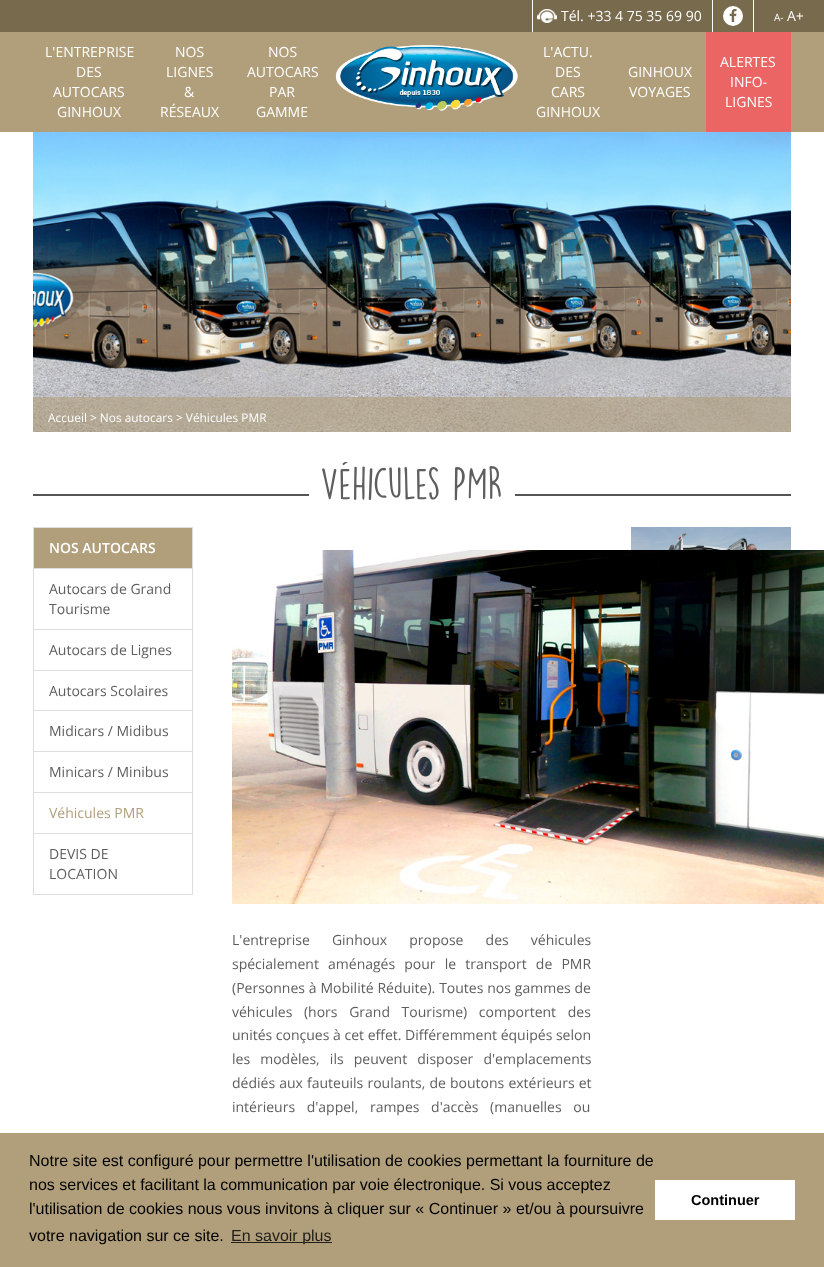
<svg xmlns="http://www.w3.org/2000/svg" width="824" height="1267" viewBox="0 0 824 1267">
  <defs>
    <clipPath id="clip1"><rect x="33" y="462" width="758" height="45"/></clipPath>
  </defs>
  <rect width="100%" height="100%" fill="#ffffff"/>
  <rect x="0" y="0" width="824" height="32" fill="#776a4d"/>
  <image x="537" y="9" width="20" height="14" href="img1.png"/>
  <rect x="532" y="0" width="1" height="32" fill="#ffffff"/>
  <text x="561" y="21" font-family="Open Sans" font-size="14" fill="#ffffff">Tél. +33 4 75 35 69 90</text>
  <rect x="712" y="0" width="1" height="32" fill="#ffffff"/>
  <circle cx="733" cy="16" r="10" fill="#ffffff"/>
  <image x="729" y="9" width="8" height="13" href="img2.png"/>
  <rect x="753" y="0" width="1" height="32" fill="#ffffff"/>
  <text x="774" y="21" font-family="Open Sans" font-size="10" fill="#ffffff">A-</text>
  <text x="787" y="21" font-family="Open Sans" font-size="14" fill="#ffffff">A+</text>
  <rect x="0" y="32" width="824" height="100" fill="#b19f7b"/>
  <text x="45" y="57" font-family="Open Sans" font-size="14" fill="#ffffff">L'ENTREPRISE</text>
  <text x="76" y="77" font-family="Open Sans" font-size="14" fill="#ffffff">DES</text>
  <text x="53" y="97" font-family="Open Sans" font-size="14" fill="#ffffff">AUTOCARS</text>
  <text x="57" y="117" font-family="Open Sans" font-size="14" fill="#ffffff">GINHOUX</text>
  <text x="175" y="57" font-family="Open Sans" font-size="14" fill="#ffffff">NOS</text>
  <text x="166" y="77" font-family="Open Sans" font-size="14" fill="#ffffff">LIGNES</text>
  <text x="184" y="97" font-family="Open Sans" font-size="14" fill="#ffffff">&amp;</text>
  <text x="160" y="117" font-family="Open Sans" font-size="14" fill="#ffffff">RÉSEAUX</text>
  <text x="268" y="57" font-family="Open Sans" font-size="14" fill="#ffffff">NOS</text>
  <text x="247" y="77" font-family="Open Sans" font-size="14" fill="#ffffff">AUTOCARS</text>
  <text x="269" y="97" font-family="Open Sans" font-size="14" fill="#ffffff">PAR</text>
  <text x="256" y="117" font-family="Open Sans" font-size="14" fill="#ffffff">GAMME</text>
  <image x="335" y="45" width="183" height="66" href="img3.png"/>
  <text x="543" y="57" font-family="Open Sans" font-size="14" fill="#ffffff">L'ACTU.</text>
  <text x="555" y="77" font-family="Open Sans" font-size="14" fill="#ffffff">DES</text>
  <text x="551" y="97" font-family="Open Sans" font-size="14" fill="#ffffff">CARS</text>
  <text x="536" y="117" font-family="Open Sans" font-size="14" fill="#ffffff">GINHOUX</text>
  <text x="628" y="77" font-family="Open Sans" font-size="14" fill="#ffffff">GINHOUX</text>
  <text x="629" y="97" font-family="Open Sans" font-size="14" fill="#ffffff">VOYAGES</text>
  <rect x="706" y="32" width="85" height="100" fill="#ec6565"/>
  <text x="720" y="67" font-family="Open Sans" font-size="14" fill="#ffffff">ALERTES</text>
  <text x="730" y="87" font-family="Open Sans" font-size="14" fill="#ffffff">INFO-</text>
  <text x="725" y="107" font-family="Open Sans" font-size="14" fill="#ffffff">LIGNES</text>
  <image x="33" y="132" width="758" height="300" href="img4.png"/>
  <rect x="33" y="397" width="758" height="35" fill="#b19f7b" fill-opacity="0.6"/>
  <text x="48" y="422" font-family="Open Sans" font-size="11.9" fill="#ffffff">Accueil &gt; Nos autocars &gt; Véhicules PMR</text>
  <rect x="33" y="494" width="276" height="2" fill="#555555"/>
  <g clip-path="url(#clip1)">
    <text x="320" y="500" font-family="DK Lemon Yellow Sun" font-size="40.5" fill="#5e5e5e">Véhicules PMR</text>
  </g>
  <rect x="515" y="494" width="276" height="2" fill="#555555"/>
  <image x="631" y="527" width="160" height="23" href="img5.png"/>
  <rect x="33.5" y="527.5" width="159" height="41" fill="#b19f7b" stroke="#dddddd"/>
  <text x="49" y="553" font-family="Open Sans" font-size="14" font-weight="600" fill="#ffffff">NOS AUTOCARS</text>
  <rect x="33.5" y="568.5" width="159" height="61" fill="none" stroke="#dddddd"/>
  <text x="49" y="594" font-family="Open Sans" font-size="14" fill="#5e5e5e">Autocars de Grand</text>
  <text x="49" y="614" font-family="Open Sans" font-size="14" fill="#5e5e5e">Tourisme</text>
  <rect x="33.5" y="629.5" width="159" height="41" fill="none" stroke="#dddddd"/>
  <text x="49" y="655" font-family="Open Sans" font-size="14" fill="#5e5e5e">Autocars de Lignes</text>
  <rect x="33.5" y="670.5" width="159" height="40" fill="none" stroke="#dddddd"/>
  <text x="49" y="696" font-family="Open Sans" font-size="14" fill="#5e5e5e">Autocars Scolaires</text>
  <rect x="33.5" y="710.5" width="159" height="41" fill="none" stroke="#dddddd"/>
  <text x="49" y="736" font-family="Open Sans" font-size="14" fill="#5e5e5e">Midicars / Midibus</text>
  <rect x="33.5" y="751.5" width="159" height="41" fill="none" stroke="#dddddd"/>
  <text x="49" y="777" font-family="Open Sans" font-size="14" fill="#5e5e5e">Minicars / Minibus</text>
  <rect x="33.5" y="792.5" width="159" height="41" fill="none" stroke="#dddddd"/>
  <text x="49" y="818" font-family="Open Sans" font-size="14" fill="#b19f7b">Véhicules PMR</text>
  <rect x="33.5" y="833.5" width="159" height="61" fill="none" stroke="#dddddd"/>
  <text x="49" y="859" font-family="Open Sans" font-size="14" fill="#5e5e5e">DEVIS DE</text>
  <text x="49" y="879" font-family="Open Sans" font-size="14" fill="#5e5e5e">LOCATION</text>
  <image x="232" y="550" width="592" height="354" href="img6.png"/>
  <text x="232" y="945" word-spacing="18.5" font-family="Open Sans" font-size="14" fill="#5e5e5e">L'entreprise Ginhoux propose des véhicules</text>
  <text x="232" y="969" word-spacing="5.5" font-family="Open Sans" font-size="14" fill="#5e5e5e">spécialement aménagés pour le transport de PMR</text>
  <text x="232" y="993" word-spacing="0.25" font-family="Open Sans" font-size="14" fill="#5e5e5e">(Personnes à Mobilité Réduite). Toutes nos gammes de</text>
  <text x="232" y="1017" word-spacing="8" font-family="Open Sans" font-size="14" fill="#5e5e5e">véhicules (hors Grand Tourisme) comportent des</text>
  <text x="232" y="1040" font-family="Open Sans" font-size="14" fill="#5e5e5e">unités conçues à cet effet. Différemment équipés selon</text>
  <text x="232" y="1064" word-spacing="6.5" font-family="Open Sans" font-size="14" fill="#5e5e5e">les modèles, ils peuvent disposer d'emplacements</text>
  <text x="232" y="1088" word-spacing="0.5" font-family="Open Sans" font-size="14" fill="#5e5e5e">dédiés aux fauteuils roulants, de boutons extérieurs et</text>
  <text x="232" y="1112" word-spacing="8" font-family="Open Sans" font-size="14" fill="#5e5e5e">intérieurs d'appel, rampes d'accès (manuelles ou</text>
  <rect x="0" y="1133" width="824" height="134" fill="#b19f7b"/>
  <text x="29" y="1166" font-family="Liberation Sans" font-size="16" fill="#000000">Notre site est configuré pour permettre l'utilisation de cookies permettant la fourniture de</text>
  <text x="29" y="1190" font-family="Liberation Sans" font-size="16" fill="#000000">nos services et facilitant la communication par voie électronique. Si vous acceptez</text>
  <text x="29" y="1214" font-family="Liberation Sans" font-size="16" fill="#000000">l'utilisation de cookies nous vous invitons à cliquer sur « Continuer » et/ou à poursuivre</text>
  <text x="29" y="1241" font-family="Liberation Sans" font-size="16" fill="#000000">votre navigation sur ce site.</text>
  <rect x="231" y="1242" width="101" height="1" fill="#232019"/>
  <text x="231" y="1241" font-family="Liberation Sans" font-size="16" fill="#232019">En savoir plus</text>
  <rect x="655" y="1180" width="140" height="40" fill="#ffffff"/>
  <text x="691" y="1205" font-family="Liberation Sans" font-size="14.5" font-weight="bold" fill="#000000">Continuer</text>
</svg>
